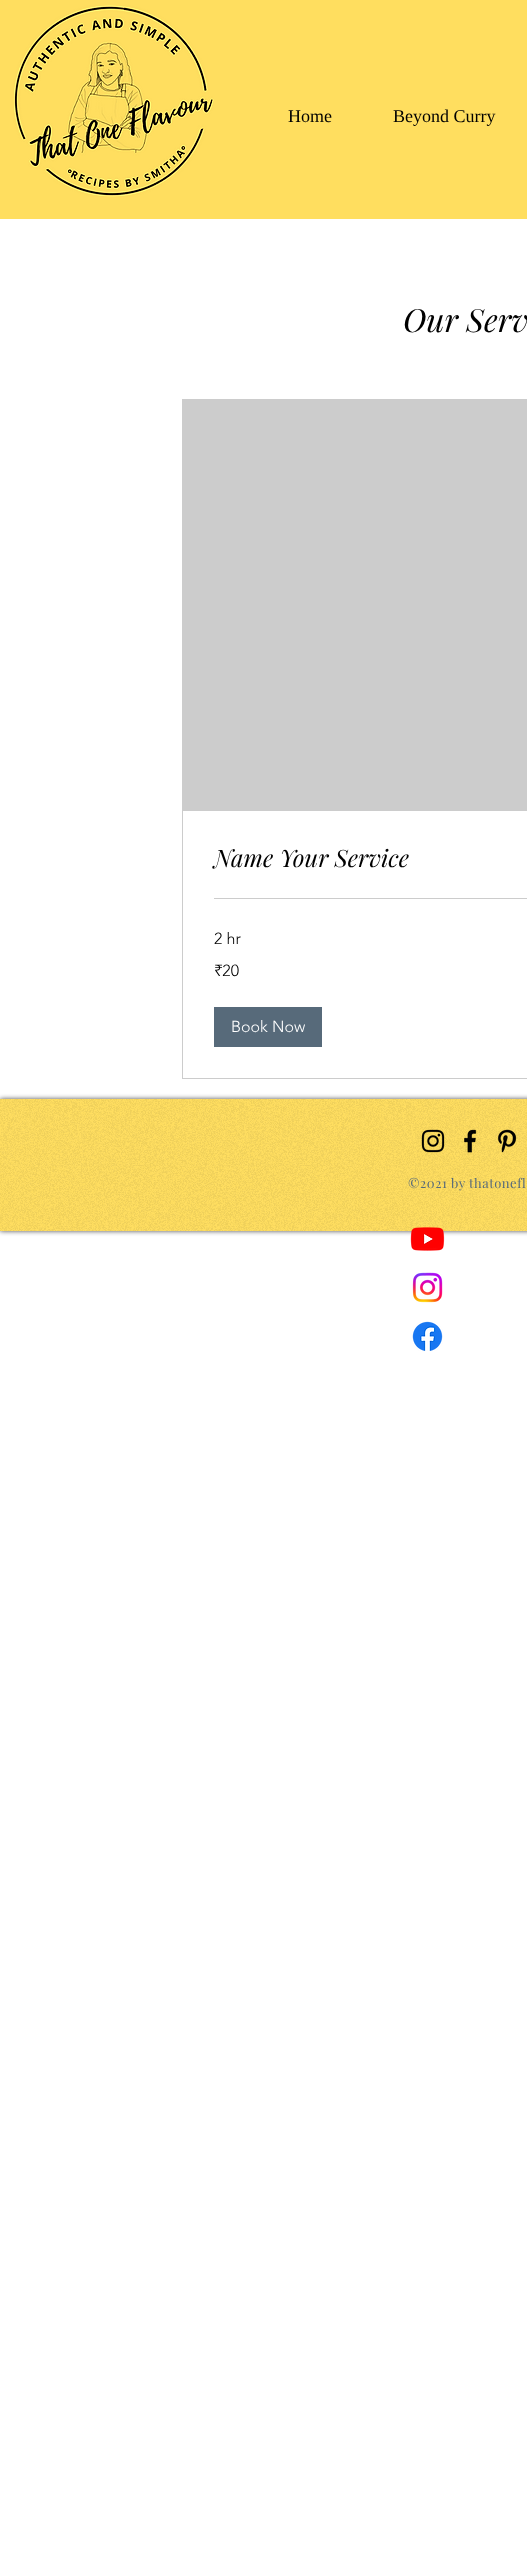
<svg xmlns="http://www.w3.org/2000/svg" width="527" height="2575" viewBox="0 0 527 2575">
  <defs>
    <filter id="blur1" x="-50%" y="-200%" width="200%" height="500%"><feGaussianBlur stdDeviation="2.5"/></filter>
  </defs>
  <rect width="100%" height="100%" fill="#ffffff"/>
  <rect x="0" y="0" width="527" height="219" fill="#ffde5f"/>
  <image x="13" y="5" width="201" height="192" href="img1.png"/>
  <text x="288" y="122" font-family="Liberation Serif" font-size="18" fill="#000000">Home</text>
  <text x="393" y="122" font-family="Liberation Serif" font-size="18" fill="#000000">Beyond Curry</text>
  <text x="403" y="332" font-family="Playfair Display" font-size="32" font-style="italic" fill="#000000">Our Serv</text>
  <rect x="182.5" y="399.5" width="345" height="679" fill="none" stroke="#cccccc"/>
  <rect x="183" y="400" width="344" height="411" fill="#cccccc"/>
  <text x="214" y="867" font-family="Playfair Display" font-size="24" font-style="italic" fill="#000000">Name Your Service</text>
  <rect x="214" y="898" width="313" height="1" fill="#cccccc"/>
  <text x="214" y="944" font-family="'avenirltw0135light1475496'" font-size="16" font-weight="300" fill="#000000">2 hr</text>
  <text x="214" y="976" font-family="'avenirltw0135light1475496'" font-size="16" font-weight="300" fill="#000000">₹20</text>
  <rect x="214" y="1007" width="108" height="40" fill="#576a7a"/>
  <text x="231" y="1032" font-family="'avenirltw0135light1475496'" font-size="16" font-weight="300" fill="#ffffff">Book Now</text>
  <rect x="0" y="1099" width="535" height="132" fill="#000000" fill-opacity="0.7" filter="url(#blur1)"/>
  <rect x="0" y="1099" width="527" height="132" fill="#ffde5f"/>
  <image x="0" y="1099" width="527" height="132" href="img2.png"/>
  <image x="421" y="1129" width="24" height="24" href="img3.png"/>
  <image x="464" y="1129" width="13" height="24" href="img4.png"/>
  <image x="497" y="1129" width="20" height="24" href="img5.png"/>
  <text x="408" y="1188" font-family="Playfair Display" font-size="13" letter-spacing="0.5" fill="#576a7a">©2021 by thatonefl</text>
  <image x="410" y="1227" width="35" height="24" href="img6.png"/>
  <image x="412" y="1272" width="31" height="31" href="img7.png"/>
  <image x="412" y="1321" width="31" height="30" href="img8.png"/>
</svg>
